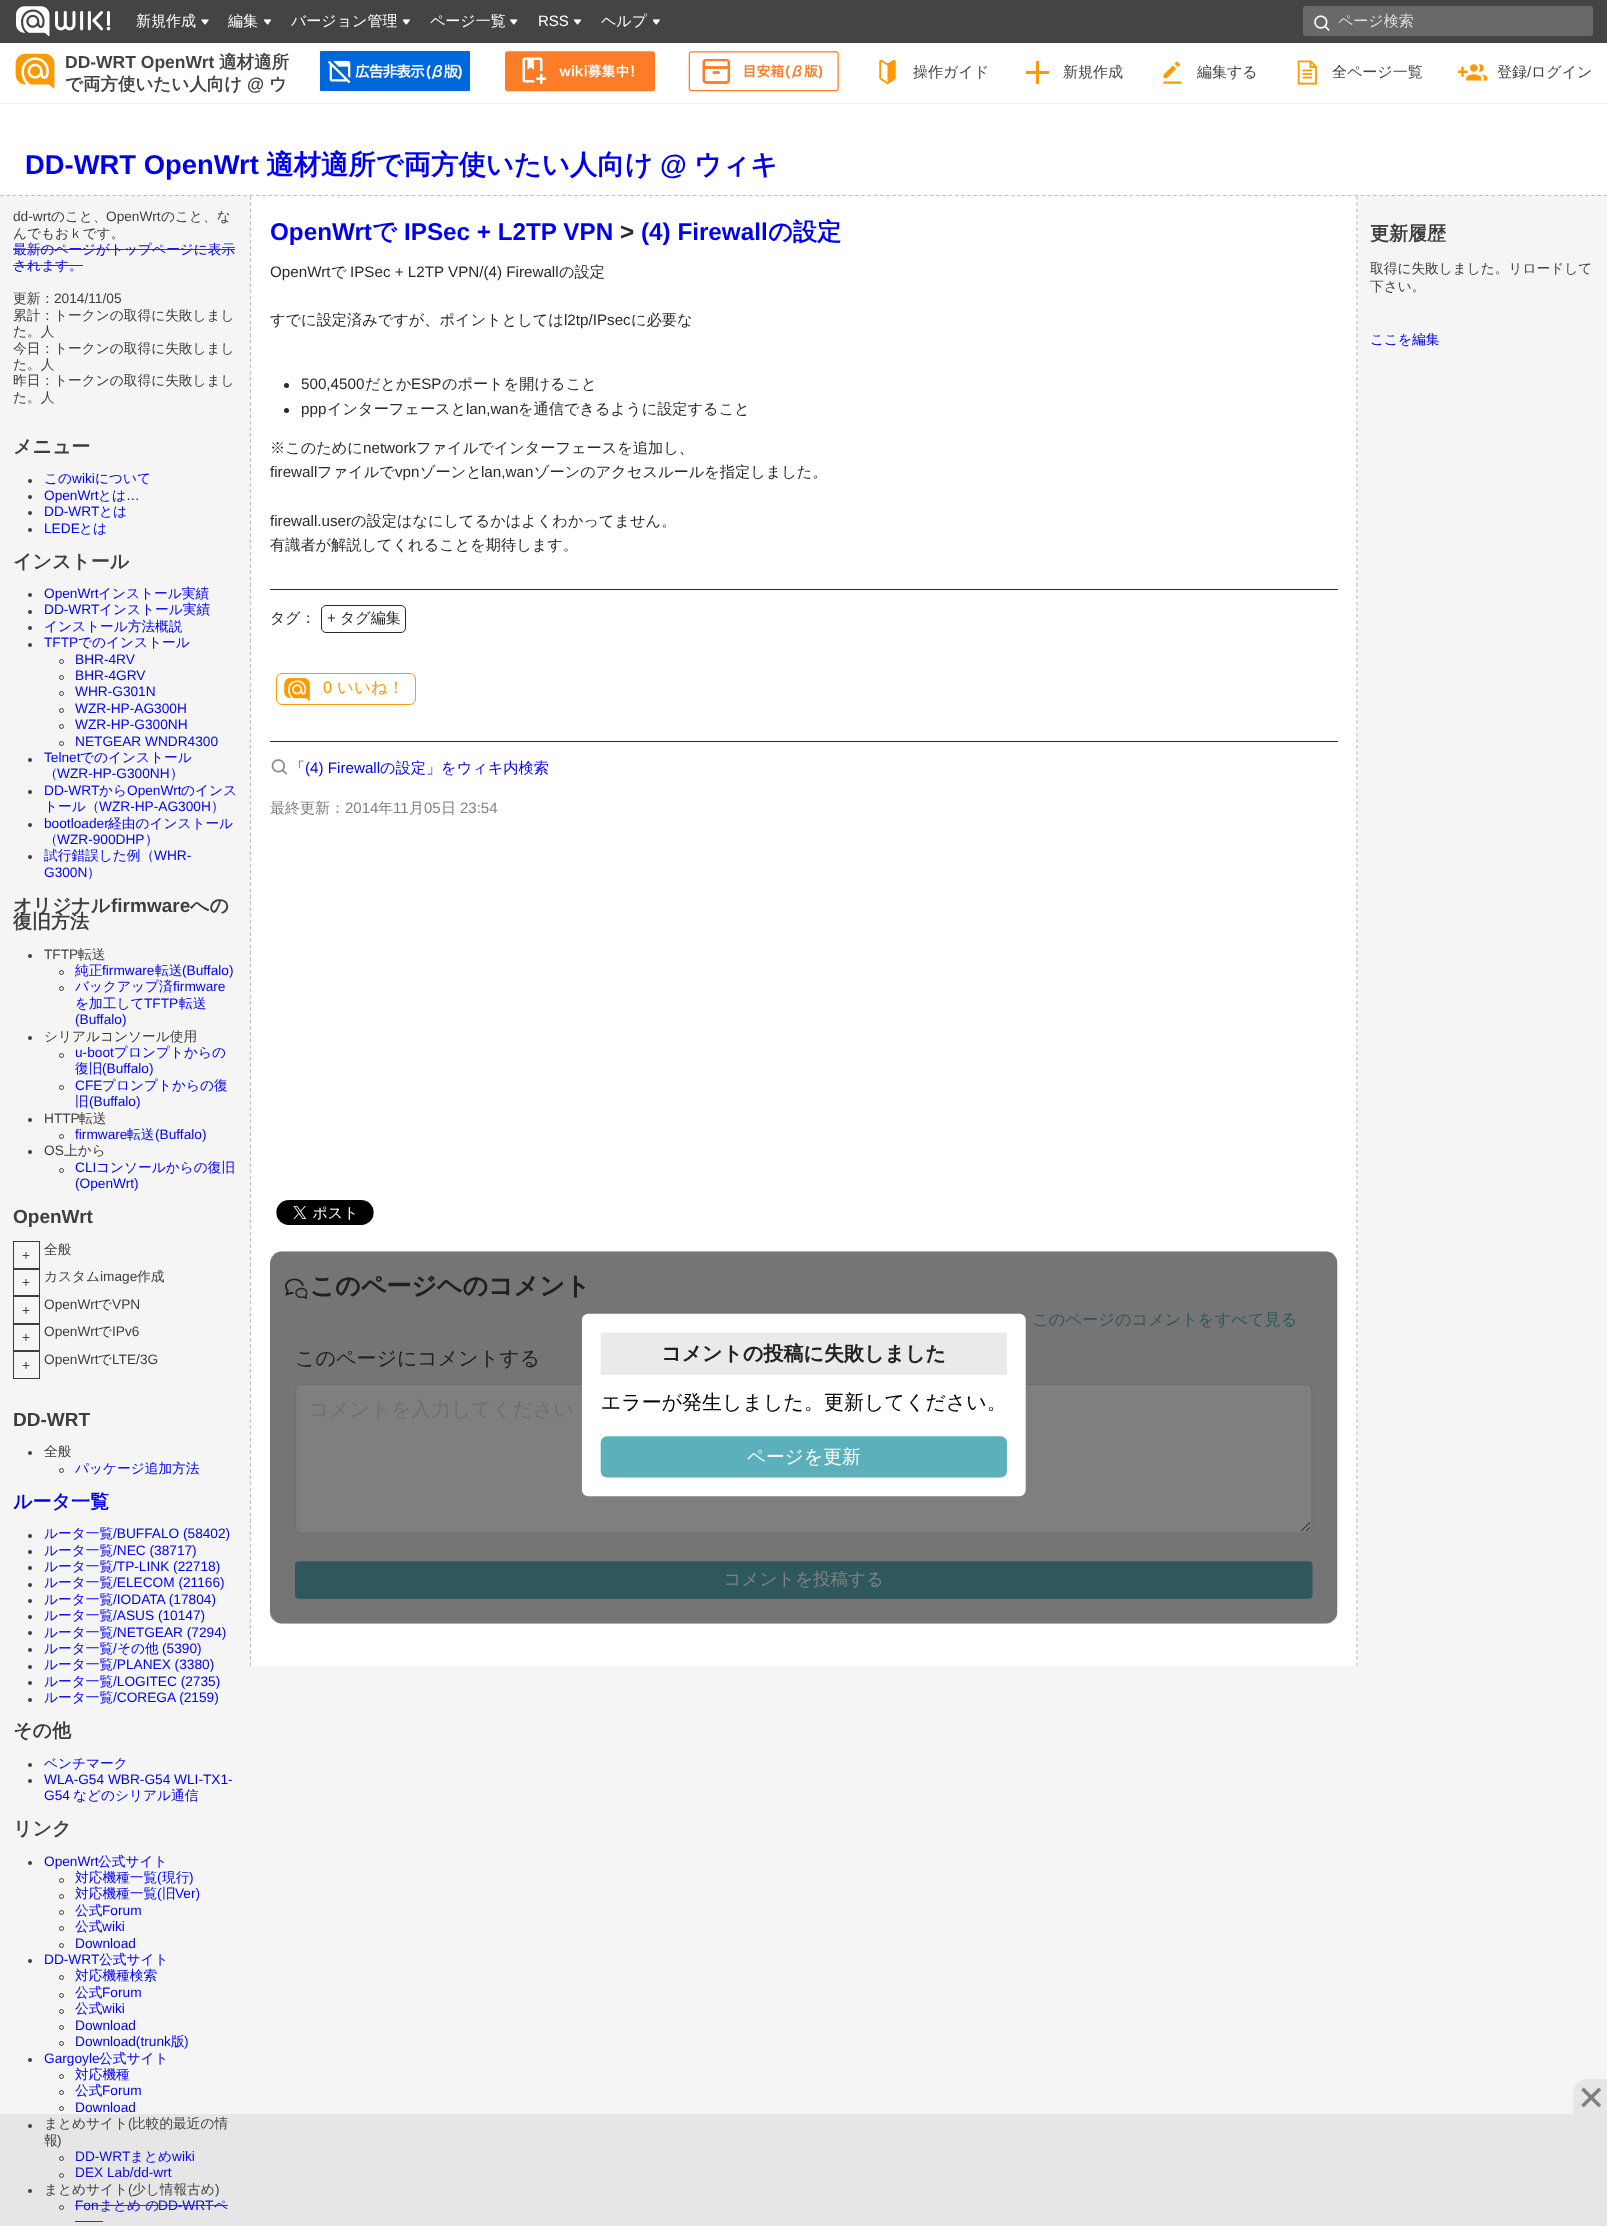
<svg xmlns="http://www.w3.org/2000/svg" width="1607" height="2226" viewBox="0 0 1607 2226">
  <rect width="100%" height="100%" fill="#ffffff"/>
  <rect x="0" y="0" width="1607" height="43" fill="#444444"/>
  <image x="16" y="6" width="95" height="30" href="img1.png"/>
  <text x="136" y="26" font-family="WenQuanYi Zen Hei" font-size="15" font-weight="500" fill="#ffffff">新規作成</text>
  <image x="201" y="19" width="8" height="6" href="img2.png"/>
  <text x="228" y="26" font-family="WenQuanYi Zen Hei" font-size="15" font-weight="500" fill="#ffffff">編集</text>
  <image x="264" y="19" width="7" height="6" href="img3.png"/>
  <text x="291" y="26" font-family="WenQuanYi Zen Hei" font-size="15" font-weight="500" fill="#ffffff">バージョン管理</text>
  <image x="403" y="19" width="7" height="6" href="img4.png"/>
  <text x="430" y="26" font-family="WenQuanYi Zen Hei" font-size="15" font-weight="500" fill="#ffffff">ページ一覧</text>
  <image x="510" y="19" width="8" height="6" href="img5.png"/>
  <text x="538" y="26" font-family="Liberation Sans" font-size="15" fill="#ffffff">RSS</text>
  <image x="574" y="19" width="7" height="6" href="img3.png"/>
  <text x="601" y="26" font-family="WenQuanYi Zen Hei" font-size="15" font-weight="500" fill="#ffffff">ヘルプ</text>
  <image x="653" y="19" width="7" height="6" href="img4.png"/>
  <rect x="1303" y="6" width="290" height="30" rx="2.5" fill="#696969"/>
  <image x="1314" y="15" width="16" height="16" href="img6.png"/>
  <text x="1338" y="26" font-family="WenQuanYi Zen Hei" font-size="15" font-weight="500" fill="#dddddd">ページ検索</text>
  <rect x="0" y="103" width="1607" height="1" fill="#f2f2f2"/>
  <image x="15" y="53" width="40" height="36" href="img7.png"/>
  <text x="65" y="68" font-family="Liberation Sans" font-size="17.5" font-weight="bold" fill="#444444">DD-WRT OpenWrt</text>
  <text x="219" y="68" font-family="WenQuanYi Zen Hei" font-size="17.5" font-weight="bold" fill="#444444">適材適所</text>
  <text x="65" y="90" font-family="WenQuanYi Zen Hei" font-size="17.5" font-weight="bold" fill="#444444">で両方使いたい人向け</text>
  <text x="247" y="90" font-family="Liberation Sans" font-size="17.5" font-weight="bold" fill="#444444">@</text>
  <text x="269" y="90" font-family="WenQuanYi Zen Hei" font-size="17.5" font-weight="bold" fill="#444444">ウ</text>
  <image x="320" y="51" width="150" height="40" href="img8.png"/>
  <image x="505" y="51" width="150" height="41" href="img9.png"/>
  <image x="688" y="51" width="151" height="41" href="img10.png"/>
  <image x="879" y="59" width="17" height="26" href="img11.png"/>
  <text x="913" y="77" font-family="WenQuanYi Zen Hei" font-size="15" font-weight="500" fill="#444444">操作ガイド</text>
  <rect x="1026" y="71" width="23" height="3" fill="#ff9900"/>
  <rect x="1036" y="61" width="3" height="23" fill="#ff9900"/>
  <text x="1063" y="77" font-family="WenQuanYi Zen Hei" font-size="15" font-weight="500" fill="#444444">新規作成</text>
  <image x="1163" y="61" width="19" height="23" href="img12.png"/>
  <text x="1197" y="77" font-family="WenQuanYi Zen Hei" font-size="15" font-weight="500" fill="#444444">編集する</text>
  <image x="1297" y="60" width="20" height="25" href="img13.png"/>
  <text x="1332" y="77" font-family="WenQuanYi Zen Hei" font-size="15" font-weight="500" fill="#444444">全ページ一覧</text>
  <image x="1458" y="64" width="30" height="17" href="img14.png"/>
  <text x="1497" y="77" font-family="WenQuanYi Zen Hei" font-size="15" font-weight="500" fill="#444444">登録</text>
  <text x="1527" y="77" font-family="Liberation Sans" font-size="15" fill="#444444">/</text>
  <text x="1531" y="77" font-family="WenQuanYi Zen Hei" font-size="15" font-weight="500" fill="#444444">ログイン</text>
  <path d="M0 195.5H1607.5" fill="none" stroke="#c0c0c0" stroke-width="1.2" stroke-dasharray="3.75 2.49"/>
  <text x="25" y="174" font-family="Liberation Sans" font-size="27.4" font-weight="bold" fill="#0000ee">DD-WRT OpenWrt</text>
  <text x="266" y="174" font-family="WenQuanYi Zen Hei" font-size="27.4" font-weight="bold" fill="#0000ee">適材適所で両方使いたい人向け</text>
  <text x="660" y="174" font-family="Liberation Sans" font-size="27.4" font-weight="bold" fill="#0000ee">@</text>
  <text x="694" y="174" font-family="WenQuanYi Zen Hei" font-size="27.4" font-weight="bold" fill="#0000ee">ウィキ</text>
  <rect x="0" y="196" width="1607" height="1918" fill="#f5f5f5"/>
  <rect x="0" y="2114" width="1607" height="112" fill="#e6e6e6"/>
  <text x="13" y="221" font-family="Liberation Sans" font-size="13.7" fill="#3e3e3e">dd-wrt</text>
  <text x="51" y="221" font-family="WenQuanYi Zen Hei" font-size="13.7" font-weight="500" fill="#3e3e3e">のこと、</text>
  <text x="106" y="221" font-family="Liberation Sans" font-size="13.7" fill="#3e3e3e">OpenWrt</text>
  <text x="161" y="221" font-family="WenQuanYi Zen Hei" font-size="13.7" font-weight="500" fill="#3e3e3e">のこと、な</text>
  <text x="13" y="238" font-family="WenQuanYi Zen Hei" font-size="13.7" font-weight="500" fill="#3e3e3e">んでもおｋです。</text>
  <text x="13" y="254" font-family="WenQuanYi Zen Hei" font-size="13.7" font-weight="500" fill="#0000ee">最新のページがトップページに表示</text>
  <rect x="13" y="249" width="222" height="1" fill="#3e3e3e"/>
  <text x="13" y="270" font-family="WenQuanYi Zen Hei" font-size="13.7" font-weight="500" fill="#0000ee">されます。</text>
  <rect x="13" y="265" width="70" height="1" fill="#3e3e3e"/>
  <text x="13" y="303" font-family="WenQuanYi Zen Hei" font-size="13.7" font-weight="500" fill="#3e3e3e">更新：</text>
  <text x="54" y="303" font-family="Liberation Sans" font-size="13.7" fill="#3e3e3e">2014/11/05</text>
  <text x="13" y="320" font-family="WenQuanYi Zen Hei" font-size="13.7" font-weight="500" fill="#3e3e3e">累計：トークンの取得に失敗しまし</text>
  <text x="13" y="336" font-family="WenQuanYi Zen Hei" font-size="13.7" font-weight="500" fill="#3e3e3e">た。人</text>
  <text x="13" y="353" font-family="WenQuanYi Zen Hei" font-size="13.7" font-weight="500" fill="#3e3e3e">今日：トークンの取得に失敗しまし</text>
  <text x="13" y="369" font-family="WenQuanYi Zen Hei" font-size="13.7" font-weight="500" fill="#3e3e3e">た。人</text>
  <text x="13" y="385" font-family="WenQuanYi Zen Hei" font-size="13.7" font-weight="500" fill="#3e3e3e">昨日：トークンの取得に失敗しまし</text>
  <text x="13" y="402" font-family="WenQuanYi Zen Hei" font-size="13.7" font-weight="500" fill="#3e3e3e">た。人</text>
  <text x="13" y="453" font-family="WenQuanYi Zen Hei" font-size="19" font-weight="bold" fill="#3e3e3e">メニュー</text>
  <circle cx="30" cy="481" r="2" fill="#3e3e3e"/>
  <text x="44" y="483" font-family="WenQuanYi Zen Hei" font-size="13.7" font-weight="500" fill="#0000ee">この</text>
  <text x="72" y="483" font-family="Liberation Sans" font-size="13.7" fill="#0000ee">wiki</text>
  <text x="95" y="483" font-family="WenQuanYi Zen Hei" font-size="13.7" font-weight="500" fill="#0000ee">について</text>
  <circle cx="30" cy="497" r="2" fill="#3e3e3e"/>
  <text x="44" y="500" font-family="Liberation Sans" font-size="13.7" fill="#0000ee">OpenWrt</text>
  <text x="98" y="500" font-family="WenQuanYi Zen Hei" font-size="13.7" font-weight="500" fill="#0000ee">とは</text>
  <text x="126" y="500" font-family="Liberation Sans" font-size="13.7" fill="#0000ee">…</text>
  <circle cx="30" cy="513" r="2" fill="#3e3e3e"/>
  <text x="44" y="516" font-family="Liberation Sans" font-size="13.7" fill="#0000ee">DD-WRT</text>
  <text x="99" y="516" font-family="WenQuanYi Zen Hei" font-size="13.7" font-weight="500" fill="#0000ee">とは</text>
  <circle cx="30" cy="530" r="2" fill="#3e3e3e"/>
  <text x="44" y="533" font-family="Liberation Sans" font-size="13.7" fill="#0000ee">LEDE</text>
  <text x="79" y="533" font-family="WenQuanYi Zen Hei" font-size="13.7" font-weight="500" fill="#0000ee">とは</text>
  <text x="13" y="568" font-family="WenQuanYi Zen Hei" font-size="19" font-weight="bold" fill="#3e3e3e">インストール</text>
  <circle cx="30" cy="595" r="2" fill="#3e3e3e"/>
  <text x="44" y="598" font-family="Liberation Sans" font-size="13.7" fill="#0000ee">OpenWrt</text>
  <text x="98" y="598" font-family="WenQuanYi Zen Hei" font-size="13.7" font-weight="500" fill="#0000ee">インストール実績</text>
  <circle cx="30" cy="612" r="2" fill="#3e3e3e"/>
  <text x="44" y="614" font-family="Liberation Sans" font-size="13.7" fill="#0000ee">DD-WRT</text>
  <text x="99" y="614" font-family="WenQuanYi Zen Hei" font-size="13.7" font-weight="500" fill="#0000ee">インストール実績</text>
  <circle cx="30" cy="628" r="2" fill="#3e3e3e"/>
  <text x="44" y="631" font-family="WenQuanYi Zen Hei" font-size="13.7" font-weight="500" fill="#0000ee">インストール方法概説</text>
  <circle cx="30" cy="645" r="2" fill="#3e3e3e"/>
  <text x="44" y="647" font-family="Liberation Sans" font-size="13.7" fill="#0000ee">TFTP</text>
  <text x="78" y="647" font-family="WenQuanYi Zen Hei" font-size="13.7" font-weight="500" fill="#0000ee">でのインストール</text>
  <circle cx="61.5" cy="661.5" r="2" fill="none" stroke="#3e3e3e"/>
  <text x="75" y="664" font-family="Liberation Sans" font-size="13.7" fill="#0000ee">BHR-4RV</text>
  <circle cx="61.5" cy="677.5" r="2" fill="none" stroke="#3e3e3e"/>
  <text x="75" y="680" font-family="Liberation Sans" font-size="13.7" fill="#0000ee">BHR-4GRV</text>
  <circle cx="61.5" cy="693.5" r="2" fill="none" stroke="#3e3e3e"/>
  <text x="75" y="696" font-family="Liberation Sans" font-size="13.7" fill="#0000ee">WHR-G301N</text>
  <circle cx="61.5" cy="710.5" r="2" fill="none" stroke="#3e3e3e"/>
  <text x="75" y="713" font-family="Liberation Sans" font-size="13.7" fill="#0000ee">WZR-HP-AG300H</text>
  <circle cx="61.5" cy="726.5" r="2" fill="none" stroke="#3e3e3e"/>
  <text x="75" y="729" font-family="Liberation Sans" font-size="13.7" fill="#0000ee">WZR-HP-G300NH</text>
  <circle cx="61.5" cy="743.5" r="2" fill="none" stroke="#3e3e3e"/>
  <text x="75" y="746" font-family="Liberation Sans" font-size="13.7" fill="#0000ee">NETGEAR WNDR4300</text>
  <circle cx="30" cy="760" r="2" fill="#3e3e3e"/>
  <text x="44" y="762" font-family="Liberation Sans" font-size="13.7" fill="#0000ee">Telnet</text>
  <text x="80" y="762" font-family="WenQuanYi Zen Hei" font-size="13.7" font-weight="500" fill="#0000ee">でのインストール</text>
  <text x="44" y="778" font-family="WenQuanYi Zen Hei" font-size="13.7" font-weight="500" fill="#0000ee">（</text>
  <text x="57" y="778" font-family="Liberation Sans" font-size="13.7" fill="#0000ee">WZR-HP-G300NH</text>
  <text x="170" y="778" font-family="WenQuanYi Zen Hei" font-size="13.7" font-weight="500" fill="#0000ee">）</text>
  <circle cx="30" cy="792" r="2" fill="#3e3e3e"/>
  <text x="44" y="795" font-family="Liberation Sans" font-size="13.7" fill="#0000ee">DD-WRT</text>
  <text x="99" y="795" font-family="WenQuanYi Zen Hei" font-size="13.7" font-weight="500" fill="#0000ee">から</text>
  <text x="127" y="795" font-family="Liberation Sans" font-size="13.7" fill="#0000ee">OpenWrt</text>
  <text x="181" y="795" font-family="WenQuanYi Zen Hei" font-size="13.7" font-weight="500" fill="#0000ee">のインス</text>
  <text x="44" y="811" font-family="WenQuanYi Zen Hei" font-size="13.7" font-weight="500" fill="#0000ee">トール（</text>
  <text x="99" y="811" font-family="Liberation Sans" font-size="13.7" fill="#0000ee">WZR-HP-AG300H</text>
  <text x="211" y="811" font-family="WenQuanYi Zen Hei" font-size="13.7" font-weight="500" fill="#0000ee">）</text>
  <circle cx="30" cy="825" r="2" fill="#3e3e3e"/>
  <text x="44" y="828" font-family="Liberation Sans" font-size="13.7" fill="#0000ee">bootloader</text>
  <text x="108" y="828" font-family="WenQuanYi Zen Hei" font-size="13.7" font-weight="500" fill="#0000ee">経由のインストール</text>
  <text x="44" y="844" font-family="WenQuanYi Zen Hei" font-size="13.7" font-weight="500" fill="#0000ee">（</text>
  <text x="57" y="844" font-family="Liberation Sans" font-size="13.7" fill="#0000ee">WZR-900DHP</text>
  <text x="145" y="844" font-family="WenQuanYi Zen Hei" font-size="13.7" font-weight="500" fill="#0000ee">）</text>
  <circle cx="30" cy="857" r="2" fill="#3e3e3e"/>
  <text x="44" y="860" font-family="WenQuanYi Zen Hei" font-size="13.7" font-weight="500" fill="#0000ee">試行錯誤した例（</text>
  <text x="154" y="860" font-family="Liberation Sans" font-size="13.7" fill="#0000ee">WHR-</text>
  <text x="44" y="877" font-family="Liberation Sans" font-size="13.7" fill="#0000ee">G300N</text>
  <text x="87" y="877" font-family="WenQuanYi Zen Hei" font-size="13.7" font-weight="500" fill="#0000ee">）</text>
  <text x="13" y="912" font-family="WenQuanYi Zen Hei" font-size="19" font-weight="bold" fill="#3e3e3e">オリジナル</text>
  <text x="111" y="912" font-family="Liberation Sans" font-size="19" font-weight="bold" fill="#3e3e3e">firmware</text>
  <text x="190" y="912" font-family="WenQuanYi Zen Hei" font-size="19" font-weight="bold" fill="#3e3e3e">への</text>
  <text x="13" y="928" font-family="WenQuanYi Zen Hei" font-size="19" font-weight="bold" fill="#3e3e3e">復旧方法</text>
  <circle cx="30" cy="956" r="2" fill="#3e3e3e"/>
  <text x="44" y="959" font-family="Liberation Sans" font-size="13.7" fill="#3e3e3e">TFTP</text>
  <text x="78" y="959" font-family="WenQuanYi Zen Hei" font-size="13.7" font-weight="500" fill="#3e3e3e">転送</text>
  <circle cx="61.5" cy="972.5" r="2" fill="none" stroke="#3e3e3e"/>
  <text x="75" y="975" font-family="WenQuanYi Zen Hei" font-size="13.7" font-weight="500" fill="#0000ee">純正</text>
  <text x="102" y="975" font-family="Liberation Sans" font-size="13.7" fill="#0000ee">firmware</text>
  <text x="155" y="975" font-family="WenQuanYi Zen Hei" font-size="13.7" font-weight="500" fill="#0000ee">転送</text>
  <text x="182" y="975" font-family="Liberation Sans" font-size="13.7" fill="#0000ee">(Buffalo)</text>
  <circle cx="61.5" cy="988.5" r="2" fill="none" stroke="#3e3e3e"/>
  <text x="75" y="991" font-family="WenQuanYi Zen Hei" font-size="13.7" font-weight="500" fill="#0000ee">バックアップ済</text>
  <text x="173" y="991" font-family="Liberation Sans" font-size="13.7" fill="#0000ee">firmware</text>
  <text x="75" y="1008" font-family="WenQuanYi Zen Hei" font-size="13.7" font-weight="500" fill="#0000ee">を加工して</text>
  <text x="144" y="1008" font-family="Liberation Sans" font-size="13.7" fill="#0000ee">TFTP</text>
  <text x="179" y="1008" font-family="WenQuanYi Zen Hei" font-size="13.7" font-weight="500" fill="#0000ee">転送</text>
  <text x="75" y="1024" font-family="Liberation Sans" font-size="13.7" fill="#0000ee">(Buffalo)</text>
  <circle cx="30" cy="1038" r="2" fill="#3e3e3e"/>
  <text x="44" y="1041" font-family="WenQuanYi Zen Hei" font-size="13.7" font-weight="500" fill="#3e3e3e">シリアルコンソール使用</text>
  <circle cx="61.5" cy="1055.5" r="2" fill="none" stroke="#3e3e3e"/>
  <text x="75" y="1057" font-family="Liberation Sans" font-size="13.7" fill="#0000ee">u-boot</text>
  <text x="114" y="1057" font-family="WenQuanYi Zen Hei" font-size="13.7" font-weight="500" fill="#0000ee">プロンプトからの</text>
  <text x="75" y="1073" font-family="WenQuanYi Zen Hei" font-size="13.7" font-weight="500" fill="#0000ee">復旧</text>
  <text x="102" y="1073" font-family="Liberation Sans" font-size="13.7" fill="#0000ee">(Buffalo)</text>
  <circle cx="61.5" cy="1087.5" r="2" fill="none" stroke="#3e3e3e"/>
  <text x="75" y="1090" font-family="Liberation Sans" font-size="13.7" fill="#0000ee">CFE</text>
  <text x="102" y="1090" font-family="WenQuanYi Zen Hei" font-size="13.7" font-weight="500" fill="#0000ee">プロンプトからの復</text>
  <text x="75" y="1106" font-family="WenQuanYi Zen Hei" font-size="13.7" font-weight="500" fill="#0000ee">旧</text>
  <text x="89" y="1106" font-family="Liberation Sans" font-size="13.7" fill="#0000ee">(Buffalo)</text>
  <circle cx="30" cy="1120" r="2" fill="#3e3e3e"/>
  <text x="44" y="1123" font-family="Liberation Sans" font-size="13.7" fill="#3e3e3e">HTTP</text>
  <text x="79" y="1123" font-family="WenQuanYi Zen Hei" font-size="13.7" font-weight="500" fill="#3e3e3e">転送</text>
  <circle cx="61.5" cy="1136.5" r="2" fill="none" stroke="#3e3e3e"/>
  <text x="75" y="1139" font-family="Liberation Sans" font-size="13.7" fill="#0000ee">firmware</text>
  <text x="127" y="1139" font-family="WenQuanYi Zen Hei" font-size="13.7" font-weight="500" fill="#0000ee">転送</text>
  <text x="155" y="1139" font-family="Liberation Sans" font-size="13.7" fill="#0000ee">(Buffalo)</text>
  <circle cx="30" cy="1152" r="2" fill="#3e3e3e"/>
  <text x="44" y="1155" font-family="Liberation Sans" font-size="13.7" fill="#3e3e3e">OS</text>
  <text x="64" y="1155" font-family="WenQuanYi Zen Hei" font-size="13.7" font-weight="500" fill="#3e3e3e">上から</text>
  <circle cx="61.5" cy="1170.5" r="2" fill="none" stroke="#3e3e3e"/>
  <text x="75" y="1172" font-family="Liberation Sans" font-size="13.7" fill="#0000ee">CLI</text>
  <text x="96" y="1172" font-family="WenQuanYi Zen Hei" font-size="13.7" font-weight="500" fill="#0000ee">コンソールからの復旧</text>
  <text x="75" y="1188" font-family="Liberation Sans" font-size="13.7" fill="#0000ee">(OpenWrt)</text>
  <text x="13" y="1223" font-family="Liberation Sans" font-size="19" font-weight="bold" fill="#3e3e3e">OpenWrt</text>
  <rect x="13.5" y="1241.5" width="26" height="27" fill="none" stroke="#3e3e3e"/>
  <text x="22" y="1260" font-family="Liberation Sans" font-size="13.7" fill="#3e3e3e">+</text>
  <text x="44" y="1254" font-family="WenQuanYi Zen Hei" font-size="13.7" font-weight="500" fill="#3e3e3e">全般</text>
  <rect x="13.5" y="1269.5" width="26" height="26" fill="none" stroke="#3e3e3e"/>
  <text x="22" y="1287" font-family="Liberation Sans" font-size="13.7" fill="#3e3e3e">+</text>
  <text x="44" y="1281" font-family="WenQuanYi Zen Hei" font-size="13.7" font-weight="500" fill="#3e3e3e">カスタム</text>
  <text x="100" y="1281" font-family="Liberation Sans" font-size="13.7" fill="#3e3e3e">image</text>
  <text x="137" y="1281" font-family="WenQuanYi Zen Hei" font-size="13.7" font-weight="500" fill="#3e3e3e">作成</text>
  <rect x="13.5" y="1296.5" width="26" height="27" fill="none" stroke="#3e3e3e"/>
  <text x="22" y="1315" font-family="Liberation Sans" font-size="13.7" fill="#3e3e3e">+</text>
  <text x="44" y="1309" font-family="Liberation Sans" font-size="13.7" fill="#3e3e3e">OpenWrt</text>
  <text x="98" y="1309" font-family="WenQuanYi Zen Hei" font-size="13.7" font-weight="500" fill="#3e3e3e">で</text>
  <text x="112" y="1309" font-family="Liberation Sans" font-size="13.7" fill="#3e3e3e">VPN</text>
  <rect x="13.5" y="1324.5" width="26" height="26" fill="none" stroke="#3e3e3e"/>
  <text x="22" y="1342" font-family="Liberation Sans" font-size="13.7" fill="#3e3e3e">+</text>
  <text x="44" y="1336" font-family="Liberation Sans" font-size="13.7" fill="#3e3e3e">OpenWrt</text>
  <text x="98" y="1336" font-family="WenQuanYi Zen Hei" font-size="13.7" font-weight="500" fill="#3e3e3e">で</text>
  <text x="112" y="1336" font-family="Liberation Sans" font-size="13.7" fill="#3e3e3e">IPv6</text>
  <rect x="13.5" y="1351.5" width="26" height="27" fill="none" stroke="#3e3e3e"/>
  <text x="22" y="1370" font-family="Liberation Sans" font-size="13.7" fill="#3e3e3e">+</text>
  <text x="44" y="1364" font-family="Liberation Sans" font-size="13.7" fill="#3e3e3e">OpenWrt</text>
  <text x="98" y="1364" font-family="WenQuanYi Zen Hei" font-size="13.7" font-weight="500" fill="#3e3e3e">で</text>
  <text x="112" y="1364" font-family="Liberation Sans" font-size="13.7" fill="#3e3e3e">LTE/3G</text>
  <text x="13" y="1426" font-family="Liberation Sans" font-size="19" font-weight="bold" fill="#3e3e3e">DD-WRT</text>
  <circle cx="30" cy="1453" r="2" fill="#3e3e3e"/>
  <text x="44" y="1456" font-family="WenQuanYi Zen Hei" font-size="13.7" font-weight="500" fill="#3e3e3e">全般</text>
  <circle cx="61.5" cy="1470.5" r="2" fill="none" stroke="#3e3e3e"/>
  <text x="75" y="1473" font-family="WenQuanYi Zen Hei" font-size="13.7" font-weight="500" fill="#0000ee">パッケージ追加方法</text>
  <text x="13" y="1508" font-family="WenQuanYi Zen Hei" font-size="19" font-weight="bold" fill="#0000ee">ルータ一覧</text>
  <circle cx="30" cy="1536" r="2" fill="#3e3e3e"/>
  <text x="44" y="1538" font-family="WenQuanYi Zen Hei" font-size="13.7" font-weight="500" fill="#0000ee">ルータ一覧</text>
  <text x="113" y="1538" font-family="Liberation Sans" font-size="13.7" fill="#0000ee">/BUFFALO (58402)</text>
  <circle cx="30" cy="1552" r="2" fill="#3e3e3e"/>
  <text x="44" y="1555" font-family="WenQuanYi Zen Hei" font-size="13.7" font-weight="500" fill="#0000ee">ルータ一覧</text>
  <text x="113" y="1555" font-family="Liberation Sans" font-size="13.7" fill="#0000ee">/NEC (38717)</text>
  <circle cx="30" cy="1568" r="2" fill="#3e3e3e"/>
  <text x="44" y="1571" font-family="WenQuanYi Zen Hei" font-size="13.7" font-weight="500" fill="#0000ee">ルータ一覧</text>
  <text x="113" y="1571" font-family="Liberation Sans" font-size="13.7" fill="#0000ee">/TP-LINK (22718)</text>
  <circle cx="30" cy="1585" r="2" fill="#3e3e3e"/>
  <text x="44" y="1587" font-family="WenQuanYi Zen Hei" font-size="13.7" font-weight="500" fill="#0000ee">ルータ一覧</text>
  <text x="113" y="1587" font-family="Liberation Sans" font-size="13.7" fill="#0000ee">/ELECOM (21166)</text>
  <circle cx="30" cy="1601" r="2" fill="#3e3e3e"/>
  <text x="44" y="1604" font-family="WenQuanYi Zen Hei" font-size="13.7" font-weight="500" fill="#0000ee">ルータ一覧</text>
  <text x="113" y="1604" font-family="Liberation Sans" font-size="13.7" fill="#0000ee">/IODATA (17804)</text>
  <circle cx="30" cy="1617" r="2" fill="#3e3e3e"/>
  <text x="44" y="1620" font-family="WenQuanYi Zen Hei" font-size="13.7" font-weight="500" fill="#0000ee">ルータ一覧</text>
  <text x="113" y="1620" font-family="Liberation Sans" font-size="13.7" fill="#0000ee">/ASUS (10147)</text>
  <circle cx="30" cy="1633" r="2" fill="#3e3e3e"/>
  <text x="44" y="1637" font-family="WenQuanYi Zen Hei" font-size="13.7" font-weight="500" fill="#0000ee">ルータ一覧</text>
  <text x="113" y="1637" font-family="Liberation Sans" font-size="13.7" fill="#0000ee">/NETGEAR (7294)</text>
  <circle cx="30" cy="1650" r="2" fill="#3e3e3e"/>
  <text x="44" y="1653" font-family="WenQuanYi Zen Hei" font-size="13.7" font-weight="500" fill="#0000ee">ルータ一覧</text>
  <text x="113" y="1653" font-family="Liberation Sans" font-size="13.7" fill="#0000ee">/</text>
  <text x="117" y="1653" font-family="WenQuanYi Zen Hei" font-size="13.7" font-weight="500" fill="#0000ee">その他</text>
  <text x="162" y="1653" font-family="Liberation Sans" font-size="13.7" fill="#0000ee">(5390)</text>
  <circle cx="30" cy="1667" r="2" fill="#3e3e3e"/>
  <text x="44" y="1669" font-family="WenQuanYi Zen Hei" font-size="13.7" font-weight="500" fill="#0000ee">ルータ一覧</text>
  <text x="113" y="1669" font-family="Liberation Sans" font-size="13.7" fill="#0000ee">/PLANEX (3380)</text>
  <circle cx="30" cy="1683" r="2" fill="#3e3e3e"/>
  <text x="44" y="1686" font-family="WenQuanYi Zen Hei" font-size="13.7" font-weight="500" fill="#0000ee">ルータ一覧</text>
  <text x="113" y="1686" font-family="Liberation Sans" font-size="13.7" fill="#0000ee">/LOGITEC (2735)</text>
  <circle cx="30" cy="1700" r="2" fill="#3e3e3e"/>
  <text x="44" y="1702" font-family="WenQuanYi Zen Hei" font-size="13.7" font-weight="500" fill="#0000ee">ルータ一覧</text>
  <text x="113" y="1702" font-family="Liberation Sans" font-size="13.7" fill="#0000ee">/COREGA (2159)</text>
  <text x="13" y="1737" font-family="WenQuanYi Zen Hei" font-size="19" font-weight="bold" fill="#3e3e3e">その他</text>
  <circle cx="30" cy="1765" r="2" fill="#3e3e3e"/>
  <text x="44" y="1768" font-family="WenQuanYi Zen Hei" font-size="13.7" font-weight="500" fill="#0000ee">ベンチマーク</text>
  <circle cx="30" cy="1781" r="2" fill="#3e3e3e"/>
  <text x="44" y="1784" font-family="Liberation Sans" font-size="13.7" fill="#0000ee">WLA-G54 WBR-G54 WLI-TX1-</text>
  <text x="44" y="1800" font-family="Liberation Sans" font-size="13.7" fill="#0000ee">G54</text>
  <text x="73" y="1800" font-family="WenQuanYi Zen Hei" font-size="13.7" font-weight="500" fill="#0000ee">などのシリアル通信</text>
  <text x="13" y="1835" font-family="WenQuanYi Zen Hei" font-size="19" font-weight="bold" fill="#3e3e3e">リンク</text>
  <circle cx="30" cy="1863" r="2" fill="#3e3e3e"/>
  <text x="44" y="1866" font-family="Liberation Sans" font-size="13.7" fill="#0000ee">OpenWrt</text>
  <text x="98" y="1866" font-family="WenQuanYi Zen Hei" font-size="13.7" font-weight="500" fill="#0000ee">公式サイト</text>
  <circle cx="61.5" cy="1880.5" r="2" fill="none" stroke="#3e3e3e"/>
  <text x="75" y="1882" font-family="WenQuanYi Zen Hei" font-size="13.7" font-weight="500" fill="#0000ee">対応機種一覧</text>
  <text x="157" y="1882" font-family="Liberation Sans" font-size="13.7" fill="#0000ee">(</text>
  <text x="162" y="1882" font-family="WenQuanYi Zen Hei" font-size="13.7" font-weight="500" fill="#0000ee">現行</text>
  <text x="189" y="1882" font-family="Liberation Sans" font-size="13.7" fill="#0000ee">)</text>
  <circle cx="61.5" cy="1896.5" r="2" fill="none" stroke="#3e3e3e"/>
  <text x="75" y="1898" font-family="WenQuanYi Zen Hei" font-size="13.7" font-weight="500" fill="#0000ee">対応機種一覧</text>
  <text x="157" y="1898" font-family="Liberation Sans" font-size="13.7" fill="#0000ee">(</text>
  <text x="162" y="1898" font-family="WenQuanYi Zen Hei" font-size="13.7" font-weight="500" fill="#0000ee">旧</text>
  <text x="175" y="1898" font-family="Liberation Sans" font-size="13.7" fill="#0000ee">Ver)</text>
  <circle cx="61.5" cy="1912.5" r="2" fill="none" stroke="#3e3e3e"/>
  <text x="75" y="1915" font-family="WenQuanYi Zen Hei" font-size="13.7" font-weight="500" fill="#0000ee">公式</text>
  <text x="102" y="1915" font-family="Liberation Sans" font-size="13.7" fill="#0000ee">Forum</text>
  <circle cx="61.5" cy="1928.5" r="2" fill="none" stroke="#3e3e3e"/>
  <text x="75" y="1931" font-family="WenQuanYi Zen Hei" font-size="13.7" font-weight="500" fill="#0000ee">公式</text>
  <text x="102" y="1931" font-family="Liberation Sans" font-size="13.7" fill="#0000ee">wiki</text>
  <circle cx="61.5" cy="1945.5" r="2" fill="none" stroke="#3e3e3e"/>
  <text x="75" y="1948" font-family="Liberation Sans" font-size="13.7" fill="#0000ee">Download</text>
  <circle cx="30" cy="1961" r="2" fill="#3e3e3e"/>
  <text x="44" y="1964" font-family="Liberation Sans" font-size="13.7" fill="#0000ee">DD-WRT</text>
  <text x="99" y="1964" font-family="WenQuanYi Zen Hei" font-size="13.7" font-weight="500" fill="#0000ee">公式サイト</text>
  <circle cx="61.5" cy="1977.5" r="2" fill="none" stroke="#3e3e3e"/>
  <text x="75" y="1980" font-family="WenQuanYi Zen Hei" font-size="13.7" font-weight="500" fill="#0000ee">対応機種検索</text>
  <circle cx="61.5" cy="1995.5" r="2" fill="none" stroke="#3e3e3e"/>
  <text x="75" y="1997" font-family="WenQuanYi Zen Hei" font-size="13.7" font-weight="500" fill="#0000ee">公式</text>
  <text x="102" y="1997" font-family="Liberation Sans" font-size="13.7" fill="#0000ee">Forum</text>
  <circle cx="61.5" cy="2011.5" r="2" fill="none" stroke="#3e3e3e"/>
  <text x="75" y="2013" font-family="WenQuanYi Zen Hei" font-size="13.7" font-weight="500" fill="#0000ee">公式</text>
  <text x="102" y="2013" font-family="Liberation Sans" font-size="13.7" fill="#0000ee">wiki</text>
  <circle cx="61.5" cy="2027.5" r="2" fill="none" stroke="#3e3e3e"/>
  <text x="75" y="2030" font-family="Liberation Sans" font-size="13.7" fill="#0000ee">Download</text>
  <circle cx="61.5" cy="2043.5" r="2" fill="none" stroke="#3e3e3e"/>
  <text x="75" y="2046" font-family="Liberation Sans" font-size="13.7" fill="#0000ee">Download(trunk</text>
  <text x="171" y="2046" font-family="WenQuanYi Zen Hei" font-size="13.7" font-weight="500" fill="#0000ee">版</text>
  <text x="184" y="2046" font-family="Liberation Sans" font-size="13.7" fill="#0000ee">)</text>
  <circle cx="30" cy="2060" r="2" fill="#3e3e3e"/>
  <text x="44" y="2063" font-family="Liberation Sans" font-size="13.7" fill="#0000ee">Gargoyle</text>
  <text x="99" y="2063" font-family="WenQuanYi Zen Hei" font-size="13.7" font-weight="500" fill="#0000ee">公式サイト</text>
  <circle cx="61.5" cy="2076.5" r="2" fill="none" stroke="#3e3e3e"/>
  <text x="75" y="2079" font-family="WenQuanYi Zen Hei" font-size="13.7" font-weight="500" fill="#0000ee">対応機種</text>
  <circle cx="61.5" cy="2092.5" r="2" fill="none" stroke="#3e3e3e"/>
  <text x="75" y="2095" font-family="WenQuanYi Zen Hei" font-size="13.7" font-weight="500" fill="#0000ee">公式</text>
  <text x="102" y="2095" font-family="Liberation Sans" font-size="13.7" fill="#0000ee">Forum</text>
  <circle cx="61.5" cy="2108.5" r="2" fill="none" stroke="#3e3e3e"/>
  <text x="75" y="2112" font-family="Liberation Sans" font-size="13.7" fill="#0000ee">Download</text>
  <circle cx="30" cy="2126" r="2" fill="#424242"/>
  <text x="44" y="2128" font-family="WenQuanYi Zen Hei" font-size="13.7" font-weight="500" fill="#444444">まとめサイト</text>
  <text x="128" y="2128" font-family="Liberation Sans" font-size="13.7" fill="#444444">(</text>
  <text x="132" y="2128" font-family="WenQuanYi Zen Hei" font-size="13.7" font-weight="500" fill="#444444">比較的最近の情</text>
  <text x="44" y="2145" font-family="WenQuanYi Zen Hei" font-size="13.7" font-weight="500" fill="#444444">報</text>
  <text x="57" y="2145" font-family="Liberation Sans" font-size="13.7" fill="#444444">)</text>
  <circle cx="61.5" cy="2158.5" r="2" fill="none" stroke="#424242"/>
  <text x="75" y="2161" font-family="Liberation Sans" font-size="13.7" fill="#0a0ae0">DD-WRT</text>
  <text x="130" y="2161" font-family="WenQuanYi Zen Hei" font-size="13.7" font-weight="500" fill="#0a0ae0">まとめ</text>
  <text x="172" y="2161" font-family="Liberation Sans" font-size="13.7" fill="#0a0ae0">wiki</text>
  <circle cx="61.5" cy="2175.5" r="2" fill="none" stroke="#424242"/>
  <text x="75" y="2177" font-family="Liberation Sans" font-size="13.7" fill="#0a0ae0">DEX Lab/dd-wrt</text>
  <circle cx="30" cy="2191" r="2" fill="#424242"/>
  <text x="44" y="2194" font-family="WenQuanYi Zen Hei" font-size="13.7" font-weight="500" fill="#444444">まとめサイト</text>
  <text x="128" y="2194" font-family="Liberation Sans" font-size="13.7" fill="#444444">(</text>
  <text x="132" y="2194" font-family="WenQuanYi Zen Hei" font-size="13.7" font-weight="500" fill="#444444">少し情報古め</text>
  <text x="215" y="2194" font-family="Liberation Sans" font-size="13.7" fill="#444444">)</text>
  <circle cx="61.5" cy="2207.5" r="2" fill="none" stroke="#424242"/>
  <text x="75" y="2210" font-family="Liberation Sans" font-size="13.7" fill="#0a0ae0">Fon</text>
  <text x="99" y="2210" font-family="WenQuanYi Zen Hei" font-size="13.7" font-weight="500" fill="#0a0ae0">まとめ の</text>
  <text x="158" y="2210" font-family="Liberation Sans" font-size="13.7" fill="#0a0ae0">DD-WRT</text>
  <text x="214" y="2210" font-family="WenQuanYi Zen Hei" font-size="13.7" font-weight="500" fill="#0a0ae0">ペ</text>
  <rect x="75" y="2205" width="153" height="1" fill="#424242"/>
  <rect x="75" y="2221" width="28" height="1" fill="#424242"/>
  <rect x="250" y="196" width="1108" height="1470" fill="#ffffff"/>
  <path d="M1357 196V1666" fill="none" stroke="#c0c0c0" stroke-width="1.2" stroke-dasharray="3.75 2.49"/>
  <path d="M250.5 196V1666" fill="none" stroke="#c0c0c0" stroke-width="1.2" stroke-dasharray="3.75 2.49"/>
  <text x="270" y="240" font-family="Liberation Sans" font-size="24.25" font-weight="bold" fill="#0000ee">OpenWrt</text>
  <text x="372" y="240" font-family="WenQuanYi Zen Hei" font-size="24.25" font-weight="bold" fill="#0000ee">で</text>
  <text x="404" y="240" font-family="Liberation Sans" font-size="24.25" font-weight="bold" fill="#0000ee">IPSec + L2TP VPN</text>
  <text x="620" y="240" font-family="Liberation Sans" font-size="24.25" font-weight="bold" fill="#2a2a2a">&gt;</text>
  <text x="641" y="240" font-family="Liberation Sans" font-size="24.25" font-weight="bold" fill="#0000ee">(4) Firewall</text>
  <text x="768" y="240" font-family="WenQuanYi Zen Hei" font-size="24.25" font-weight="bold" fill="#0000ee">の設定</text>
  <text x="270" y="277" font-family="Liberation Sans" font-size="15.2" fill="#2a2a2a">OpenWrt</text>
  <text x="331" y="277" font-family="WenQuanYi Zen Hei" font-size="15.2" font-weight="500" fill="#2a2a2a">で</text>
  <text x="350" y="277" font-family="Liberation Sans" font-size="15.2" fill="#2a2a2a">IPSec + L2TP VPN/(4) Firewall</text>
  <text x="559" y="277" font-family="WenQuanYi Zen Hei" font-size="15.2" font-weight="500" fill="#2a2a2a">の設定</text>
  <text x="270" y="325" font-family="WenQuanYi Zen Hei" font-size="15.2" font-weight="500" fill="#2a2a2a">すでに設定済みですが、ポイントとしては</text>
  <text x="564" y="325" font-family="Liberation Sans" font-size="15.2" fill="#2a2a2a">l2tp/IPsec</text>
  <text x="631" y="325" font-family="WenQuanYi Zen Hei" font-size="15.2" font-weight="500" fill="#2a2a2a">に必要な</text>
  <circle cx="286.5" cy="385.5" r="2.5" fill="#2a2a2a"/>
  <text x="301" y="389" font-family="Liberation Sans" font-size="15.2" fill="#2a2a2a">500,4500</text>
  <text x="365" y="389" font-family="WenQuanYi Zen Hei" font-size="15.2" font-weight="500" fill="#2a2a2a">だとか</text>
  <text x="411" y="389" font-family="Liberation Sans" font-size="15.2" fill="#2a2a2a">ESP</text>
  <text x="442" y="389" font-family="WenQuanYi Zen Hei" font-size="15.2" font-weight="500" fill="#2a2a2a">のポートを開けること</text>
  <circle cx="286.5" cy="410.5" r="2.5" fill="#2a2a2a"/>
  <text x="301" y="414" font-family="Liberation Sans" font-size="15.2" fill="#2a2a2a">ppp</text>
  <text x="327" y="414" font-family="WenQuanYi Zen Hei" font-size="15.2" font-weight="500" fill="#2a2a2a">インターフェースと</text>
  <text x="466" y="414" font-family="Liberation Sans" font-size="15.2" fill="#2a2a2a">lan,wan</text>
  <text x="518" y="414" font-family="WenQuanYi Zen Hei" font-size="15.2" font-weight="500" fill="#2a2a2a">を通信できるように設定すること</text>
  <text x="270" y="453" font-family="WenQuanYi Zen Hei" font-size="15.2" font-weight="500" fill="#2a2a2a">※このために</text>
  <text x="363" y="453" font-family="Liberation Sans" font-size="15.2" fill="#2a2a2a">network</text>
  <text x="416" y="453" font-family="WenQuanYi Zen Hei" font-size="15.2" font-weight="500" fill="#2a2a2a">ファイルでインターフェースを追加し、</text>
  <text x="270" y="477" font-family="Liberation Sans" font-size="15.2" fill="#2a2a2a">firewall</text>
  <text x="317" y="477" font-family="WenQuanYi Zen Hei" font-size="15.2" font-weight="500" fill="#2a2a2a">ファイルで</text>
  <text x="395" y="477" font-family="Liberation Sans" font-size="15.2" fill="#2a2a2a">vpn</text>
  <text x="420" y="477" font-family="WenQuanYi Zen Hei" font-size="15.2" font-weight="500" fill="#2a2a2a">ゾーンと</text>
  <text x="481" y="477" font-family="Liberation Sans" font-size="15.2" fill="#2a2a2a">lan,wan</text>
  <text x="534" y="477" font-family="WenQuanYi Zen Hei" font-size="15.2" font-weight="500" fill="#2a2a2a">ゾーンのアクセスルールを指定しました。</text>
  <text x="270" y="526" font-family="Liberation Sans" font-size="15.2" fill="#2a2a2a">firewall.user</text>
  <text x="351" y="526" font-family="WenQuanYi Zen Hei" font-size="15.2" font-weight="500" fill="#2a2a2a">の設定はなにしてるかはよくわかってません。</text>
  <text x="270" y="550" font-family="WenQuanYi Zen Hei" font-size="15.2" font-weight="500" fill="#2a2a2a">有識者が解説してくれることを期待します。</text>
  <rect x="270" y="589" width="1068" height="1" fill="#2a2a2a"/>
  <text x="270" y="623" font-family="WenQuanYi Zen Hei" font-size="15" font-weight="500" fill="#2a2a2a">タグ：</text>
  <rect x="321.5" y="605.5" width="84" height="27" rx="4.5" fill="none" stroke="#2a2a2a"/>
  <text x="327" y="623" font-family="Liberation Sans" font-size="15" fill="#2a2a2a">+</text>
  <text x="340" y="623" font-family="WenQuanYi Zen Hei" font-size="15" font-weight="500" fill="#2a2a2a">タグ編集</text>
  <rect x="276.5" y="673.5" width="139" height="31" rx="5.5" fill="none" stroke="#ff9900"/>
  <image x="284" y="678" width="26" height="23" href="img15.png"/>
  <text x="323" y="693" font-family="Liberation Sans" font-size="16.5" fill="#ff9900">0</text>
  <text x="337" y="693" font-family="WenQuanYi Zen Hei" font-size="16.5" font-weight="500" fill="#ff9900">いいね！</text>
  <rect x="270" y="741" width="1068" height="1" fill="#2a2a2a"/>
  <image x="271" y="759" width="17" height="16" href="img16.png"/>
  <text x="290" y="773" font-family="WenQuanYi Zen Hei" font-size="15.2" font-weight="500" fill="#0000ee">「</text>
  <text x="305" y="773" font-family="Liberation Sans" font-size="15.2" fill="#0000ee">(4) Firewall</text>
  <text x="380" y="773" font-family="WenQuanYi Zen Hei" font-size="15.2" font-weight="500" fill="#0000ee">の設定」をウィキ内検索</text>
  <text x="270" y="813" font-family="WenQuanYi Zen Hei" font-size="15" font-weight="500" fill="#808080">最終更新：</text>
  <text x="345" y="813" font-family="Liberation Sans" font-size="15" fill="#808080">2014</text>
  <text x="378" y="813" font-family="WenQuanYi Zen Hei" font-size="15" font-weight="500" fill="#808080">年</text>
  <text x="393" y="813" font-family="Liberation Sans" font-size="15" fill="#808080">11</text>
  <text x="409" y="813" font-family="WenQuanYi Zen Hei" font-size="15" font-weight="500" fill="#808080">月</text>
  <text x="424" y="813" font-family="Liberation Sans" font-size="15" fill="#808080">05</text>
  <text x="441" y="813" font-family="WenQuanYi Zen Hei" font-size="15" font-weight="500" fill="#808080">日</text>
  <text x="460" y="813" font-family="Liberation Sans" font-size="15" fill="#808080">23:54</text>
  <image x="276" y="1200" width="98" height="25" href="img17.png"/>
  <image x="270" y="1251" width="1068" height="373" href="img18.png"/>
  <text x="1370" y="240" font-family="WenQuanYi Zen Hei" font-size="19" font-weight="bold" fill="#3e3e3e">更新履歴</text>
  <text x="1370" y="273" font-family="WenQuanYi Zen Hei" font-size="13.7" font-weight="500" fill="#3e3e3e">取得に失敗しました。リロードして</text>
  <text x="1370" y="291" font-family="WenQuanYi Zen Hei" font-size="13.7" font-weight="500" fill="#3e3e3e">下さい。</text>
  <text x="1370" y="344" font-family="WenQuanYi Zen Hei" font-size="13.7" font-weight="500" fill="#0000ee">ここを編集</text>
  <path d="M1588 2079H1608V2114H1573V2094C1573 2085.5 1579.5 2079 1588 2079Z" fill="#e6e6e6"/>
  <image x="1581" y="2087" width="20" height="21" href="img19.png"/>
</svg>
